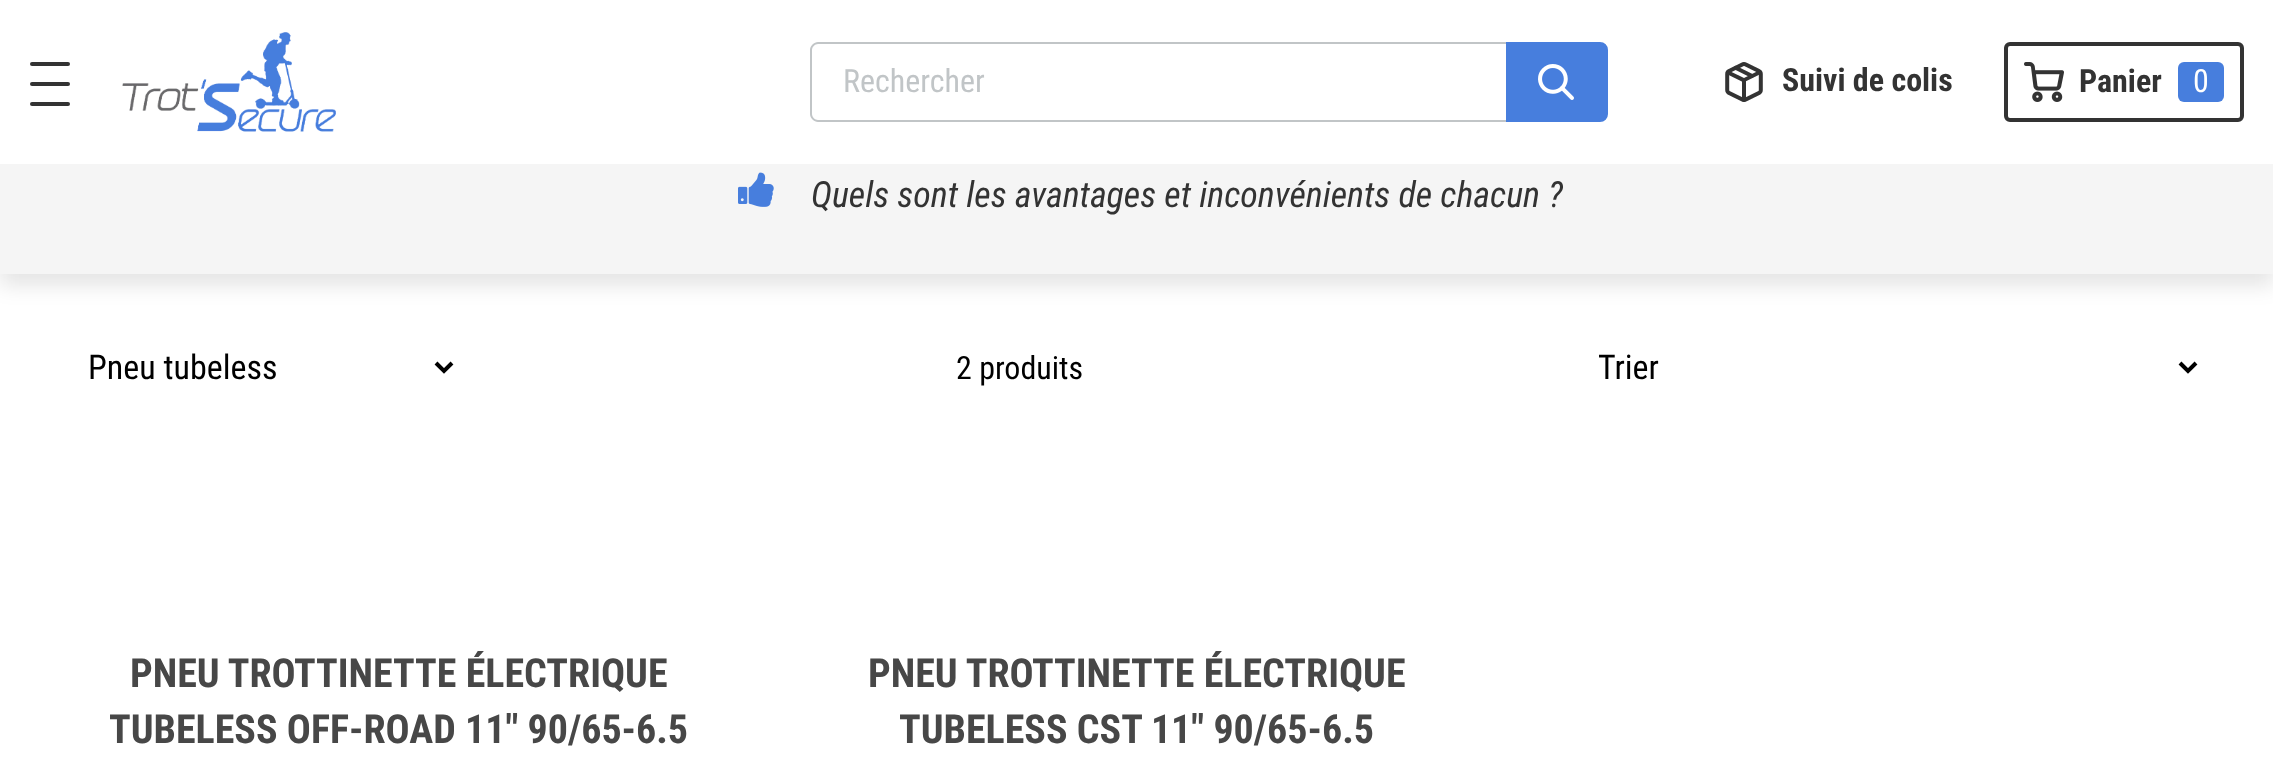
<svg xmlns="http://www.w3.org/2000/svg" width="2273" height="763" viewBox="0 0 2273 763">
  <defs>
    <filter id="blur1" x="-50%" y="-200%" width="200%" height="500%"><feGaussianBlur stdDeviation="10"/></filter>
  </defs>
  <rect width="100%" height="100%" fill="#ffffff"/>
  <rect x="0" y="-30" width="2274" height="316" fill="#000000" fill-opacity="0.1" filter="url(#blur1)"/>
  <rect x="0" y="0" width="2273" height="164" fill="#ffffff"/>
  <rect x="30" y="62" width="40" height="4" rx="2" fill="#333333"/>
  <rect x="30" y="82" width="40" height="4" rx="2" fill="#333333"/>
  <rect x="30" y="102" width="40" height="4" rx="2" fill="#333333"/>
  <image x="122" y="32" width="214" height="100" href="img1.png"/>
  <path d="M818 42H1508V122H818C814 122 810 118 810 114V50C810 46 814 42 818 42ZM818 44H1508V120H818C815 120 812 117 812 114V50C812 47 815 44 818 44Z" fill="#c1c5c7" fill-rule="evenodd"/>
  <text x="843" y="92" font-family="Roboto Condensed" font-size="32" fill="#c1c5c7">Rechercher</text>
  <path d="M1507 43H1600C1604 43 1607 46 1607 50V114C1607 118 1604 121 1600 121H1507Z" fill="#477edd" stroke="#477edd" stroke-width="2"/>
  <image x="1538" y="64" width="36" height="36" href="img2.png"/>
  <image x="1725" y="62" width="38" height="40" href="img3.png"/>
  <text x="1782" y="91" font-family="Roboto Condensed" font-size="32" font-weight="bold" fill="#333333">Suivi de colis</text>
  <rect x="2006" y="44" width="236" height="76" rx="4" fill="none" stroke="#333333" stroke-width="4"/>
  <image x="2024" y="62" width="40" height="40" href="img4.png"/>
  <text x="2079" y="92" font-family="Roboto Condensed" font-size="32" font-weight="bold" fill="#333333">Panier</text>
  <rect x="2178" y="62" width="46" height="40" rx="6" fill="#477edd"/>
  <text x="2193" y="92" font-family="Roboto Condensed" font-size="32" fill="#ffffff">0</text>
  <rect x="0" y="164" width="2273" height="110" fill="#f5f5f5"/>
  <image x="738" y="172" width="36" height="35" href="img5.png"/>
  <text x="811" y="207" font-family="Roboto Condensed" font-size="36" font-style="italic" fill="#333333">Quels sont les avantages et inconvénients de chacun ?</text>
  <path d="M436 363L444 371L452 363" fill="none" stroke="#000000" stroke-width="4"/>
  <text x="88" y="379" font-family="Roboto Condensed" font-size="34" fill="#000000">Pneu tubeless</text>
  <text x="956" y="379" font-family="Roboto Condensed" font-size="32" fill="#000000">2 produits</text>
  <path d="M2180 363L2188 371L2196 363" fill="none" stroke="#000000" stroke-width="4"/>
  <text x="1598" y="379" font-family="Roboto Condensed" font-size="34" fill="#000000">Trier</text>
  <text x="130" y="687" font-family="Roboto Condensed" font-size="40" font-weight="bold" fill="#474747">PNEU TROTTINETTE ÉLECTRIQUE</text>
  <text x="109" y="743" font-family="Roboto Condensed" font-size="40" font-weight="bold" fill="#474747">TUBELESS OFF-ROAD 11" 90/65-6.5</text>
  <text x="868" y="687" font-family="Roboto Condensed" font-size="40" font-weight="bold" fill="#474747">PNEU TROTTINETTE ÉLECTRIQUE</text>
  <text x="899" y="743" font-family="Roboto Condensed" font-size="40" font-weight="bold" fill="#474747">TUBELESS CST 11" 90/65-6.5</text>
</svg>
